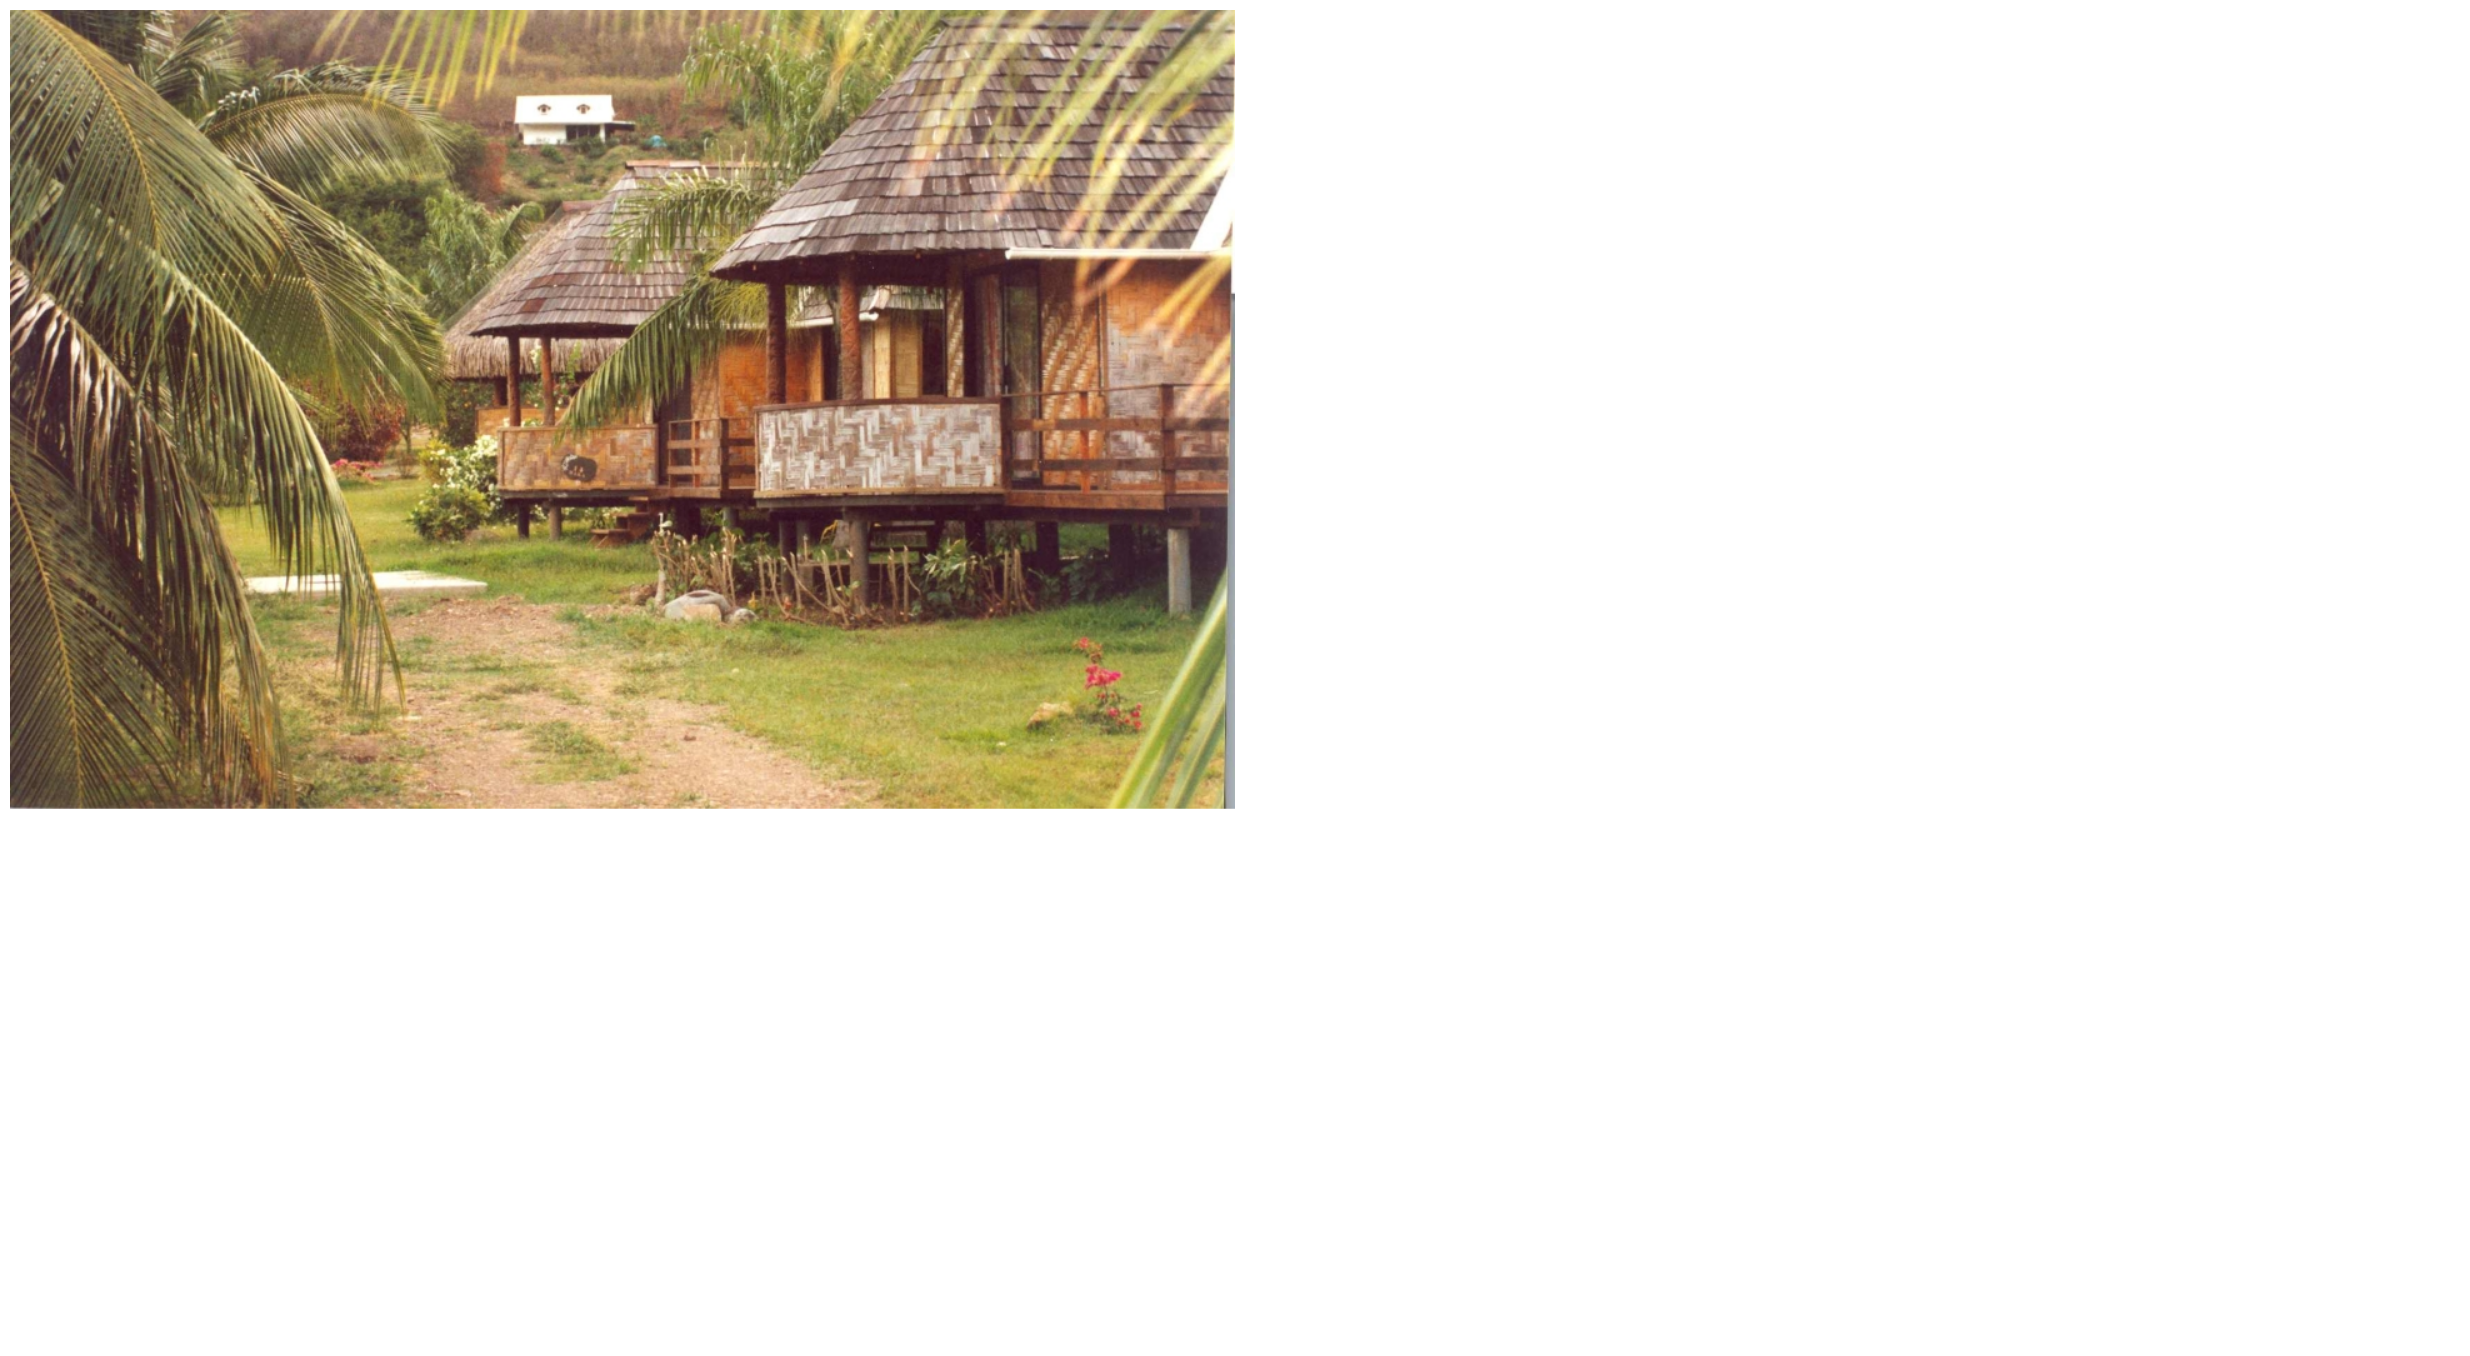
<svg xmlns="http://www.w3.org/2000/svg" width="2470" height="1356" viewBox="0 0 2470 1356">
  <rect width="100%" height="100%" fill="#ffffff"/>
  <image x="10" y="10" width="1225" height="799" href="img1.png"/>
</svg>
